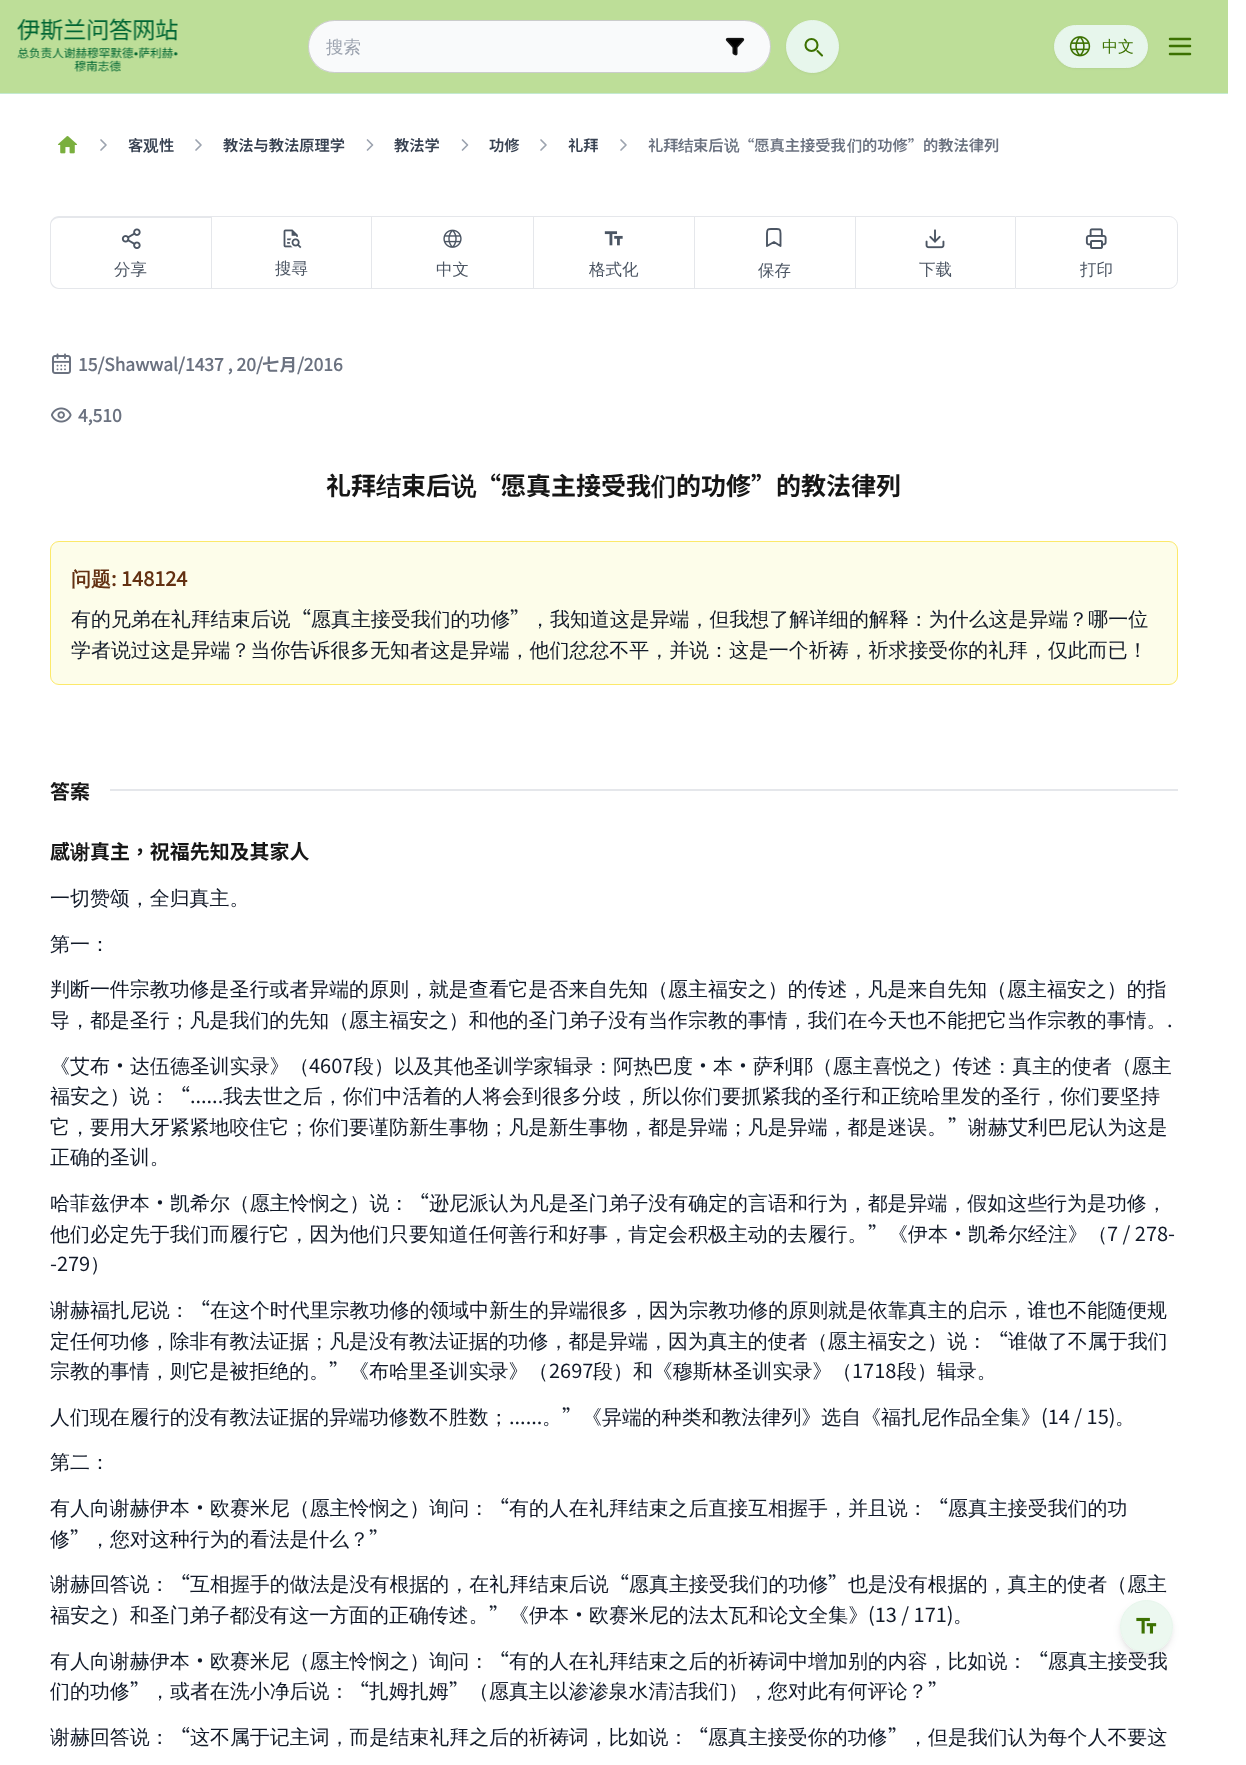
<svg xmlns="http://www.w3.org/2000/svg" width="1246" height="1765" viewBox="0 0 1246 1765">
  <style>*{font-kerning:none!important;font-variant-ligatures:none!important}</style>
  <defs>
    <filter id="blur1" x="-50%" y="-200%" width="200%" height="500%"><feGaussianBlur stdDeviation="1"/></filter>
    <clipPath id="clip1"><path d="M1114 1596H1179V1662H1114ZM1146.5 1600C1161 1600 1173 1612 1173 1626.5C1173 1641 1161 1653 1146.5 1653C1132 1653 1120 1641 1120 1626.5C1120 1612 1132 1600 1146.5 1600Z" clip-rule="evenodd"/></clipPath>
    <filter id="blur2" x="-50%" y="-200%" width="200%" height="500%"><feGaussianBlur stdDeviation="2.5"/></filter>
    <clipPath id="clip2"><path d="M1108 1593H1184V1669H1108ZM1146.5 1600C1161 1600 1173 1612 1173 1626.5C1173 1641 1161 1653 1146.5 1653C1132 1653 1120 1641 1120 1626.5C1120 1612 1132 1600 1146.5 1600Z" clip-rule="evenodd"/></clipPath>
    <filter id="blur3" x="-50%" y="-200%" width="200%" height="500%"><feGaussianBlur stdDeviation="4"/></filter>
  </defs>
  <rect width="100%" height="100%" fill="#ffffff"/>
  <rect x="0" y="0" width="1228" height="93" fill="#bdde98"/>
  <rect x="0" y="93" width="1228" height="1" fill="#c4ead1"/>
  <image x="17" y="18" width="161" height="54" href="img1.png"/>
  <rect x="308" y="20" width="463" height="53" rx="26.5" fill="#f9fafb"/>
  <rect x="308.5" y="20.5" width="462" height="52" rx="26" fill="none" stroke="#161616" stroke-opacity="0.2"/>
  <text x="326" y="53" font-family="WenQuanYi Zen Hei" font-size="17.5" font-weight="500" fill="#9ca3af">搜索</text>
  <image x="725" y="37" width="20" height="19" href="img2.png"/>
  <rect x="786" y="21" width="53" height="53" rx="26.5" fill="#000000" fill-opacity="0.05" filter="url(#blur1)"/>
  <circle cx="812.5" cy="46.5" r="26" fill="#e7f6ec" stroke="#e7f6ec"/>
  <path d="M822 55.5L817.5 51" fill="none" stroke="#3c7101" stroke-width="2.1" stroke-linecap="round" stroke-linejoin="round"/>
  <circle cx="811.5" cy="45" r="6" fill="none" stroke="#3c7101" stroke-width="2.1"/>
  <rect x="1054" y="26" width="94" height="43" rx="21.5" fill="#000000" fill-opacity="0.05" filter="url(#blur1)"/>
  <rect x="1054.5" y="25.5" width="93" height="42" rx="21" fill="#e7f6ec" stroke="#e7f6ec"/>
  <image x="1069" y="36" width="22" height="21" href="img3.png"/>
  <text x="1102" y="52" font-family="WenQuanYi Zen Hei" font-size="16" font-weight="500" fill="#3c7101">中文</text>
  <path d="M1170 46H1190M1170 54H1190M1170 39H1190" fill="none" stroke="#3c7101" stroke-width="2.5" stroke-linecap="round" stroke-linejoin="round"/>
  <image x="57" y="136" width="21" height="18" href="img4.png"/>
  <path d="M101 150L106 145L101 140" fill="none" stroke="#9ca3af" stroke-width="1.7" stroke-linecap="round" stroke-linejoin="round"/>
  <text x="128" y="151" font-family="Noto Sans TC" font-size="15.25" font-weight="600" fill="#374151">客</text>
  <text x="143" y="151" font-family="WenQuanYi Zen Hei" font-size="15.25" font-weight="bold" fill="#374151">观</text>
  <text x="159" y="151" font-family="Noto Sans TC" font-size="15.25" font-weight="600" fill="#374151">性</text>
  <path d="M196 150L201 145L196 140" fill="none" stroke="#9ca3af" stroke-width="1.7" stroke-linecap="round" stroke-linejoin="round"/>
  <text x="223" y="151" font-family="Noto Sans TC" font-size="15.25" font-weight="600" fill="#374151">教法与教法原理学</text>
  <path d="M367.5 150L372.5 145L367.5 140" fill="none" stroke="#9ca3af" stroke-width="1.7" stroke-linecap="round" stroke-linejoin="round"/>
  <text x="394" y="151" font-family="Noto Sans TC" font-size="15.25" font-weight="600" fill="#374151">教法学</text>
  <path d="M462.5 150L467.5 145L462.5 140" fill="none" stroke="#9ca3af" stroke-width="1.7" stroke-linecap="round" stroke-linejoin="round"/>
  <text x="489" y="151" font-family="Noto Sans TC" font-size="15.25" font-weight="600" fill="#374151">功修</text>
  <path d="M541 150L546 145L541 140" fill="none" stroke="#9ca3af" stroke-width="1.7" stroke-linecap="round" stroke-linejoin="round"/>
  <text x="568" y="151" font-family="Noto Sans TC" font-size="15.25" font-weight="600" fill="#374151">礼拜</text>
  <path d="M621 150L626 145L621 140" fill="none" stroke="#9ca3af" stroke-width="1.7" stroke-linecap="round" stroke-linejoin="round"/>
  <text x="648" y="151" font-family="Noto Sans TC" font-size="15.25" font-weight="600" fill="#6b7280">礼拜</text>
  <text x="678" y="151" font-family="WenQuanYi Zen Hei" font-size="15.25" font-weight="bold" fill="#6b7280">结</text>
  <text x="693" y="151" font-family="Noto Sans TC" font-size="15.25" font-weight="600" fill="#6b7280">束后</text>
  <text x="724" y="151" font-family="WenQuanYi Zen Hei" font-size="15.25" font-weight="bold" fill="#6b7280">说</text>
  <text x="739" y="151" font-family="Noto Sans TC" font-size="15.25" font-weight="600" fill="#6b7280">“愿真主接受我</text>
  <text x="847" y="151" font-family="WenQuanYi Zen Hei" font-size="15.25" font-weight="bold" fill="#6b7280">们</text>
  <text x="862" y="151" font-family="Noto Sans TC" font-size="15.25" font-weight="600" fill="#6b7280">的功修”的教法律列</text>
  <path d="M59 216H211V289H59C54 289 50 285 50 280V225C50 220 54 216 59 216ZM59 218H211V288H59C55 288 51 284 51 280V225C51 221 55 218 59 218Z" fill="#e5e7eb" fill-rule="evenodd"/>
  <image x="121" y="228" width="20" height="21" href="img5.png"/>
  <text x="114" y="275" font-family="WenQuanYi Zen Hei" font-size="16.5" font-weight="500" fill="#4b5563">分享</text>
  <rect x="211" y="216" width="804" height="1" fill="#e5e7eb"/>
  <rect x="211" y="288" width="804" height="1" fill="#e5e7eb"/>
  <rect x="211" y="216" width="1" height="73" fill="#e5e7eb"/>
  <image x="283" y="229" width="19" height="20" href="img6.png"/>
  <text x="275" y="274" font-family="WenQuanYi Zen Hei" font-size="16.5" font-weight="500" fill="#4b5563">搜尋</text>
  <rect x="371" y="216" width="1" height="73" fill="#e5e7eb"/>
  <image x="443" y="229" width="19" height="19" href="img7.png"/>
  <text x="436" y="275" font-family="WenQuanYi Zen Hei" font-size="16.5" font-weight="500" fill="#4b5563">中文</text>
  <rect x="533" y="216" width="1" height="73" fill="#e5e7eb"/>
  <image x="604" y="231" width="19" height="15" href="img8.png"/>
  <text x="589" y="275" font-family="WenQuanYi Zen Hei" font-size="16.5" font-weight="500" fill="#4b5563">格式化</text>
  <rect x="694" y="216" width="1" height="73" fill="#e5e7eb"/>
  <path d="M780.5 246L774 242L767 246V233.5C767 228 768.5 229 774 229C779 229 780.5 228 780.5 233.5Z" fill="none" stroke="#4b5563" stroke-width="1.9" stroke-linecap="round" stroke-linejoin="round"/>
  <text x="758" y="276" font-family="WenQuanYi Zen Hei" font-size="16.5" font-weight="500" fill="#4b5563">保存</text>
  <rect x="855" y="216" width="1" height="73" fill="#e5e7eb"/>
  <image x="925" y="229" width="20" height="20" href="img9.png"/>
  <text x="919" y="275" font-family="WenQuanYi Zen Hei" font-size="16.5" font-weight="500" fill="#4b5563">下载</text>
  <path d="M1015.5 216.5H1169C1173.5 216.5 1177.5 220.5 1177.5 225V280C1177.5 284.5 1173.5 288.5 1169 288.5H1015.5Z" fill="none" stroke="#e5e7eb"/>
  <image x="1085" y="228" width="22" height="21" href="img10.png"/>
  <text x="1080" y="275" font-family="WenQuanYi Zen Hei" font-size="16.5" font-weight="500" fill="#4b5563">打印</text>
  <image x="51" y="353" width="20" height="21" href="img11.png"/>
  <text x="78" y="371" font-family="Noto Sans TC" font-size="17.5" font-weight="bold" fill="#6b7280">15/Shawwal/1437 , 20/</text>
  <text x="262" y="371" font-family="'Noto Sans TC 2'" font-size="17.5" font-weight="bold" fill="#6b7280">七月</text>
  <text x="297" y="371" font-family="Noto Sans TC" font-size="17.5" font-weight="bold" fill="#6b7280">/2016</text>
  <image x="51" y="407" width="21" height="16" href="img12.png"/>
  <text x="78" y="422" font-family="Noto Sans TC" font-size="17.5" font-weight="bold" fill="#6b7280">4,510</text>
  <text x="326" y="495" font-family="'Noto Sans TC 2'" font-size="25" font-weight="bold" fill="#161616">礼拜</text>
  <text x="376" y="495" font-family="WenQuanYi Zen Hei" font-size="25" font-weight="bold" fill="#161616">结</text>
  <text x="401" y="495" font-family="'Noto Sans TC 2'" font-size="25" font-weight="bold" fill="#161616">束后</text>
  <text x="451" y="495" font-family="WenQuanYi Zen Hei" font-size="25" font-weight="bold" fill="#161616">说</text>
  <text x="476" y="495" font-family="'Noto Sans TC 2'" font-size="25" font-weight="bold" fill="#161616">“愿真主接受我</text>
  <text x="651" y="495" font-family="WenQuanYi Zen Hei" font-size="25" font-weight="bold" fill="#161616">们</text>
  <text x="676" y="495" font-family="'Noto Sans TC 2'" font-size="25" font-weight="bold" fill="#161616">的功修”的教法律列</text>
  <rect x="50.5" y="541.5" width="1127" height="143" rx="8.5" fill="#fdfdea" stroke="#fce96a"/>
  <text x="71" y="586" font-family="WenQuanYi Zen Hei" font-size="19.95" font-weight="bold" fill="#633112">问题</text>
  <text x="111" y="586" font-family="Noto Sans TC" font-size="19.95" font-weight="bold" fill="#633112">: 148124</text>
  <text x="71" y="626" font-family="WenQuanYi Zen Hei" font-size="19.95" font-weight="500" fill="#111928">有的兄弟在礼拜结束后说</text>
  <text x="291" y="626" font-family="Noto Sans TC" font-size="19.95" font-weight="100" fill="#111928">“</text>
  <text x="311" y="626" font-family="WenQuanYi Zen Hei" font-size="19.95" font-weight="500" fill="#111928">愿真主接受我们的功修</text>
  <text x="510" y="626" font-family="Noto Sans TC" font-size="19.95" font-weight="100" fill="#111928">”</text>
  <text x="530" y="626" font-family="WenQuanYi Zen Hei" font-size="19.95" font-weight="500" fill="#111928">，我知道这是异端，但我想了解详细的解释：为什么这是异端？哪一位</text>
  <text x="71" y="657" font-family="WenQuanYi Zen Hei" font-size="19.95" font-weight="500" fill="#111928">学者说过这是异端？当你告诉很多无知者这是异端，他们忿忿不平，并说：这是一个祈祷，祈求接受你的礼拜，仅此而已！</text>
  <text x="50" y="799" font-family="'Noto Sans TC 2'" font-size="19.95" font-weight="bold" fill="#161616">答案</text>
  <rect x="110" y="789" width="1068" height="2" fill="#e5e7eb"/>
  <text x="50" y="859" font-family="'Noto Sans TC 2'" font-size="19.95" font-weight="bold" fill="#161616">感</text>
  <text x="70" y="859" font-family="WenQuanYi Zen Hei" font-size="19.95" font-weight="bold" fill="#161616">谢</text>
  <text x="90" y="859" font-family="'Noto Sans TC 2'" font-size="19.95" font-weight="bold" fill="#161616">真主，祝福先知及其家人</text>
  <text x="50" y="905" font-family="WenQuanYi Zen Hei" font-size="19.95" font-weight="500" fill="#111928">一切赞颂，全归真主。</text>
  <text x="50" y="951" font-family="WenQuanYi Zen Hei" font-size="19.95" font-weight="500" fill="#111928">第一：</text>
  <text x="50" y="996" font-family="WenQuanYi Zen Hei" font-size="19.95" font-weight="500" fill="#111928">判断一件宗教功修是圣行或者异端的原则，就是查看它是否来自先知（愿主福安之）的传述，凡是来自先知（愿主福安之）的指</text>
  <text x="50" y="1027" font-family="WenQuanYi Zen Hei" font-size="19.95" font-weight="500" fill="#111928">导，都是圣行；凡是我们的先知（愿主福安之）和他的圣门弟子没有当作宗教的事情，我们在今天也不能把它当作宗教的事情。</text>
  <text x="1167" y="1027" font-family="Noto Sans TC" font-size="19.95" font-weight="100" fill="#111928">.</text>
  <text x="50" y="1073" font-family="WenQuanYi Zen Hei" font-size="19.95" font-weight="500" fill="#111928">《艾布</text>
  <text x="110" y="1073" font-family="Noto Sans TC" font-size="19.95" font-weight="100" fill="#111928">•</text>
  <text x="130" y="1073" font-family="WenQuanYi Zen Hei" font-size="19.95" font-weight="500" fill="#111928">达伍德圣训实录》（</text>
  <text x="309" y="1073" font-family="Noto Sans TC" font-size="19.95" font-weight="100" fill="#111928">4607</text>
  <text x="354" y="1073" font-family="WenQuanYi Zen Hei" font-size="19.95" font-weight="500" fill="#111928">段）以及其他圣训学家辑录：阿热巴度</text>
  <text x="693" y="1073" font-family="Noto Sans TC" font-size="19.95" font-weight="100" fill="#111928">·</text>
  <text x="713" y="1073" font-family="WenQuanYi Zen Hei" font-size="19.95" font-weight="500" fill="#111928">本</text>
  <text x="733" y="1073" font-family="Noto Sans TC" font-size="19.95" font-weight="100" fill="#111928">·</text>
  <text x="753" y="1073" font-family="WenQuanYi Zen Hei" font-size="19.95" font-weight="500" fill="#111928">萨利耶（愿主喜悦之）传述：真主的使者（愿主</text>
  <text x="50" y="1103" font-family="WenQuanYi Zen Hei" font-size="19.95" font-weight="500" fill="#111928">福安之）说：</text>
  <text x="170" y="1103" font-family="Noto Sans TC" font-size="19.95" font-weight="100" fill="#111928">“......</text>
  <text x="223" y="1103" font-family="WenQuanYi Zen Hei" font-size="19.95" font-weight="500" fill="#111928">我去世之后，你们中活着的人将会到很多分歧，所以你们要抓紧我的圣行和正统哈里发的圣行，你们要坚持</text>
  <text x="50" y="1134" font-family="WenQuanYi Zen Hei" font-size="19.95" font-weight="500" fill="#111928">它，要用大牙紧紧地咬住它；你们要谨防新生事物；凡是新生事物，都是异端；凡是异端，都是迷误。</text>
  <text x="948" y="1134" font-family="Noto Sans TC" font-size="19.95" font-weight="100" fill="#111928">”</text>
  <text x="968" y="1134" font-family="WenQuanYi Zen Hei" font-size="19.95" font-weight="500" fill="#111928">谢赫艾利巴尼认为这是</text>
  <text x="50" y="1164" font-family="WenQuanYi Zen Hei" font-size="19.95" font-weight="500" fill="#111928">正确的圣训。</text>
  <text x="50" y="1210" font-family="WenQuanYi Zen Hei" font-size="19.95" font-weight="500" fill="#111928">哈菲兹伊本</text>
  <text x="150" y="1210" font-family="Noto Sans TC" font-size="19.95" font-weight="100" fill="#111928">·</text>
  <text x="170" y="1210" font-family="WenQuanYi Zen Hei" font-size="19.95" font-weight="500" fill="#111928">凯希尔（愿主怜悯之）说：</text>
  <text x="409" y="1210" font-family="Noto Sans TC" font-size="19.95" font-weight="100" fill="#111928">“</text>
  <text x="429" y="1210" font-family="WenQuanYi Zen Hei" font-size="19.95" font-weight="500" fill="#111928">逊尼派认为凡是圣门弟子没有确定的言语和行为，都是异端，假如这些行为是功修，</text>
  <text x="50" y="1241" font-family="WenQuanYi Zen Hei" font-size="19.95" font-weight="500" fill="#111928">他们必定先于我们而履行它，因为他们只要知道任何善行和好事，肯定会积极主动的去履行。</text>
  <text x="868" y="1241" font-family="Noto Sans TC" font-size="19.95" font-weight="100" fill="#111928">”</text>
  <text x="888" y="1241" font-family="WenQuanYi Zen Hei" font-size="19.95" font-weight="500" fill="#111928">《伊本</text>
  <text x="948" y="1241" font-family="Noto Sans TC" font-size="19.95" font-weight="100" fill="#111928">·</text>
  <text x="968" y="1241" font-family="WenQuanYi Zen Hei" font-size="19.95" font-weight="500" fill="#111928">凯希尔经注》（</text>
  <text x="1107" y="1241" font-family="Noto Sans TC" font-size="19.95" font-weight="100" fill="#111928">7 / 278-</text>
  <text x="50" y="1271" font-family="Noto Sans TC" font-size="19.95" font-weight="100" fill="#111928">-279</text>
  <text x="90" y="1271" font-family="WenQuanYi Zen Hei" font-size="19.95" font-weight="500" fill="#111928">）</text>
  <text x="50" y="1317" font-family="WenQuanYi Zen Hei" font-size="19.95" font-weight="500" fill="#111928">谢赫福扎尼说：</text>
  <text x="190" y="1317" font-family="Noto Sans TC" font-size="19.95" font-weight="100" fill="#111928">“</text>
  <text x="210" y="1317" font-family="WenQuanYi Zen Hei" font-size="19.95" font-weight="500" fill="#111928">在这个时代里宗教功修的领域中新生的异端很多，因为宗教功修的原则就是依靠真主的启示，谁也不能随便规</text>
  <text x="50" y="1348" font-family="WenQuanYi Zen Hei" font-size="19.95" font-weight="500" fill="#111928">定任何功修，除非有教法证据；凡是没有教法证据的功修，都是异端，因为真主的使者（愿主福安之）说：</text>
  <text x="988" y="1348" font-family="Noto Sans TC" font-size="19.95" font-weight="100" fill="#111928">“</text>
  <text x="1008" y="1348" font-family="WenQuanYi Zen Hei" font-size="19.95" font-weight="500" fill="#111928">谁做了不属于我们</text>
  <text x="50" y="1378" font-family="WenQuanYi Zen Hei" font-size="19.95" font-weight="500" fill="#111928">宗教的事情，则它是被拒绝的。</text>
  <text x="329" y="1378" font-family="Noto Sans TC" font-size="19.95" font-weight="100" fill="#111928">”</text>
  <text x="349" y="1378" font-family="WenQuanYi Zen Hei" font-size="19.95" font-weight="500" fill="#111928">《布哈里圣训实录》（</text>
  <text x="549" y="1378" font-family="Noto Sans TC" font-size="19.95" font-weight="100" fill="#111928">2697</text>
  <text x="593" y="1378" font-family="WenQuanYi Zen Hei" font-size="19.95" font-weight="500" fill="#111928">段）和《穆斯林圣训实录》（</text>
  <text x="852" y="1378" font-family="Noto Sans TC" font-size="19.95" font-weight="100" fill="#111928">1718</text>
  <text x="897" y="1378" font-family="WenQuanYi Zen Hei" font-size="19.95" font-weight="500" fill="#111928">段）辑录。</text>
  <text x="50" y="1424" font-family="WenQuanYi Zen Hei" font-size="19.95" font-weight="500" fill="#111928">人们现在履行的没有教法证据的异端功修数不胜数；</text>
  <text x="509" y="1424" font-family="Noto Sans TC" font-size="19.95" font-weight="100" fill="#111928">......</text>
  <text x="542" y="1424" font-family="WenQuanYi Zen Hei" font-size="19.95" font-weight="500" fill="#111928">。</text>
  <text x="562" y="1424" font-family="Noto Sans TC" font-size="19.95" font-weight="100" fill="#111928">”</text>
  <text x="582" y="1424" font-family="WenQuanYi Zen Hei" font-size="19.95" font-weight="500" fill="#111928">《异端的种类和教法律列》选自《福扎尼作品全集》</text>
  <text x="1041" y="1424" font-family="Noto Sans TC" font-size="19.95" font-weight="100" fill="#111928">(14 / 15)</text>
  <text x="1115" y="1424" font-family="WenQuanYi Zen Hei" font-size="19.95" font-weight="500" fill="#111928">。</text>
  <text x="50" y="1469" font-family="WenQuanYi Zen Hei" font-size="19.95" font-weight="500" fill="#111928">第二：</text>
  <text x="50" y="1515" font-family="WenQuanYi Zen Hei" font-size="19.95" font-weight="500" fill="#111928">有人向谢赫伊本</text>
  <text x="190" y="1515" font-family="Noto Sans TC" font-size="19.95" font-weight="100" fill="#111928">•</text>
  <text x="210" y="1515" font-family="WenQuanYi Zen Hei" font-size="19.95" font-weight="500" fill="#111928">欧赛米尼（愿主怜悯之）询问：</text>
  <text x="489" y="1515" font-family="Noto Sans TC" font-size="19.95" font-weight="100" fill="#111928">“</text>
  <text x="509" y="1515" font-family="WenQuanYi Zen Hei" font-size="19.95" font-weight="500" fill="#111928">有的人在礼拜结束之后直接互相握手，并且说：</text>
  <text x="928" y="1515" font-family="Noto Sans TC" font-size="19.95" font-weight="100" fill="#111928">“</text>
  <text x="948" y="1515" font-family="WenQuanYi Zen Hei" font-size="19.95" font-weight="500" fill="#111928">愿真主接受我们的功</text>
  <text x="50" y="1546" font-family="WenQuanYi Zen Hei" font-size="19.95" font-weight="500" fill="#111928">修</text>
  <text x="70" y="1546" font-family="Noto Sans TC" font-size="19.95" font-weight="100" fill="#111928">”</text>
  <text x="90" y="1546" font-family="WenQuanYi Zen Hei" font-size="19.95" font-weight="500" fill="#111928">，您对这种行为的看法是什么？</text>
  <text x="369" y="1546" font-family="Noto Sans TC" font-size="19.95" font-weight="100" fill="#111928">”</text>
  <text x="50" y="1591" font-family="WenQuanYi Zen Hei" font-size="19.95" font-weight="500" fill="#111928">谢赫回答说：</text>
  <text x="170" y="1591" font-family="Noto Sans TC" font-size="19.95" font-weight="100" fill="#111928">“</text>
  <text x="190" y="1591" font-family="WenQuanYi Zen Hei" font-size="19.95" font-weight="500" fill="#111928">互相握手的做法是没有根据的，在礼拜结束后说</text>
  <text x="609" y="1591" font-family="Noto Sans TC" font-size="19.95" font-weight="100" fill="#111928">“</text>
  <text x="629" y="1591" font-family="WenQuanYi Zen Hei" font-size="19.95" font-weight="500" fill="#111928">愿真主接受我们的功修</text>
  <text x="828" y="1591" font-family="Noto Sans TC" font-size="19.95" font-weight="100" fill="#111928">”</text>
  <text x="848" y="1591" font-family="WenQuanYi Zen Hei" font-size="19.95" font-weight="500" fill="#111928">也是没有根据的，真主的使者（愿主</text>
  <text x="50" y="1622" font-family="WenQuanYi Zen Hei" font-size="19.95" font-weight="500" fill="#111928">福安之）和圣门弟子都没有这一方面的正确传述。</text>
  <text x="489" y="1622" font-family="Noto Sans TC" font-size="19.95" font-weight="100" fill="#111928">”</text>
  <text x="509" y="1622" font-family="WenQuanYi Zen Hei" font-size="19.95" font-weight="500" fill="#111928">《伊本</text>
  <text x="569" y="1622" font-family="Noto Sans TC" font-size="19.95" font-weight="100" fill="#111928">·</text>
  <text x="589" y="1622" font-family="WenQuanYi Zen Hei" font-size="19.95" font-weight="500" fill="#111928">欧赛米尼的法太瓦和论文全集》</text>
  <text x="868" y="1622" font-family="Noto Sans TC" font-size="19.95" font-weight="100" fill="#111928">(13 / 171)</text>
  <text x="953" y="1622" font-family="WenQuanYi Zen Hei" font-size="19.95" font-weight="500" fill="#111928">。</text>
  <text x="50" y="1668" font-family="WenQuanYi Zen Hei" font-size="19.95" font-weight="500" fill="#111928">有人向谢赫伊本</text>
  <text x="190" y="1668" font-family="Noto Sans TC" font-size="19.95" font-weight="100" fill="#111928">•</text>
  <text x="210" y="1668" font-family="WenQuanYi Zen Hei" font-size="19.95" font-weight="500" fill="#111928">欧赛米尼（愿主怜悯之）询问：</text>
  <text x="489" y="1668" font-family="Noto Sans TC" font-size="19.95" font-weight="100" fill="#111928">“</text>
  <text x="509" y="1668" font-family="WenQuanYi Zen Hei" font-size="19.95" font-weight="500" fill="#111928">有的人在礼拜结束之后的祈祷词中增加别的内容，比如说：</text>
  <text x="1028" y="1668" font-family="Noto Sans TC" font-size="19.95" font-weight="100" fill="#111928">“</text>
  <text x="1048" y="1668" font-family="WenQuanYi Zen Hei" font-size="19.95" font-weight="500" fill="#111928">愿真主接受我</text>
  <text x="50" y="1698" font-family="WenQuanYi Zen Hei" font-size="19.95" font-weight="500" fill="#111928">们的功修</text>
  <text x="130" y="1698" font-family="Noto Sans TC" font-size="19.95" font-weight="100" fill="#111928">”</text>
  <text x="150" y="1698" font-family="WenQuanYi Zen Hei" font-size="19.95" font-weight="500" fill="#111928">，或者在洗小净后说：</text>
  <text x="349" y="1698" font-family="Noto Sans TC" font-size="19.95" font-weight="100" fill="#111928">“</text>
  <text x="369" y="1698" font-family="WenQuanYi Zen Hei" font-size="19.95" font-weight="500" fill="#111928">扎姆扎姆</text>
  <text x="449" y="1698" font-family="Noto Sans TC" font-size="19.95" font-weight="100" fill="#111928">”</text>
  <text x="469" y="1698" font-family="WenQuanYi Zen Hei" font-size="19.95" font-weight="500" fill="#111928">（愿真主以渗渗泉水清洁我们），您对此有何评论？</text>
  <text x="928" y="1698" font-family="Noto Sans TC" font-size="19.95" font-weight="100" fill="#111928">”</text>
  <text x="50" y="1744" font-family="WenQuanYi Zen Hei" font-size="19.95" font-weight="500" fill="#111928">谢赫回答说：</text>
  <text x="170" y="1744" font-family="Noto Sans TC" font-size="19.95" font-weight="100" fill="#111928">“</text>
  <text x="190" y="1744" font-family="WenQuanYi Zen Hei" font-size="19.95" font-weight="500" fill="#111928">这不属于记主词，而是结束礼拜之后的祈祷词，比如说：</text>
  <text x="688" y="1744" font-family="Noto Sans TC" font-size="19.95" font-weight="100" fill="#111928">“</text>
  <text x="708" y="1744" font-family="WenQuanYi Zen Hei" font-size="19.95" font-weight="500" fill="#111928">愿真主接受你的功修</text>
  <text x="888" y="1744" font-family="Noto Sans TC" font-size="19.95" font-weight="100" fill="#111928">”</text>
  <text x="908" y="1744" font-family="WenQuanYi Zen Hei" font-size="19.95" font-weight="500" fill="#111928">，但是我们认为每个人不要这</text>
  <g clip-path="url(#clip1)">
    <rect x="1123" y="1605" width="47" height="48" rx="23.5" fill="#000000" fill-opacity="0.1" filter="url(#blur2)"/>
  </g>
  <g clip-path="url(#clip2)">
    <rect x="1121" y="1606" width="50" height="50" rx="25" fill="#000000" fill-opacity="0.1" filter="url(#blur3)"/>
  </g>
  <circle cx="1146.5" cy="1626.5" r="26" fill="#e7f6ec" fill-opacity="0.8" stroke="#e7f6ec"/>
  <image x="1136" y="1617" width="21" height="17" href="img13.png"/>
</svg>
